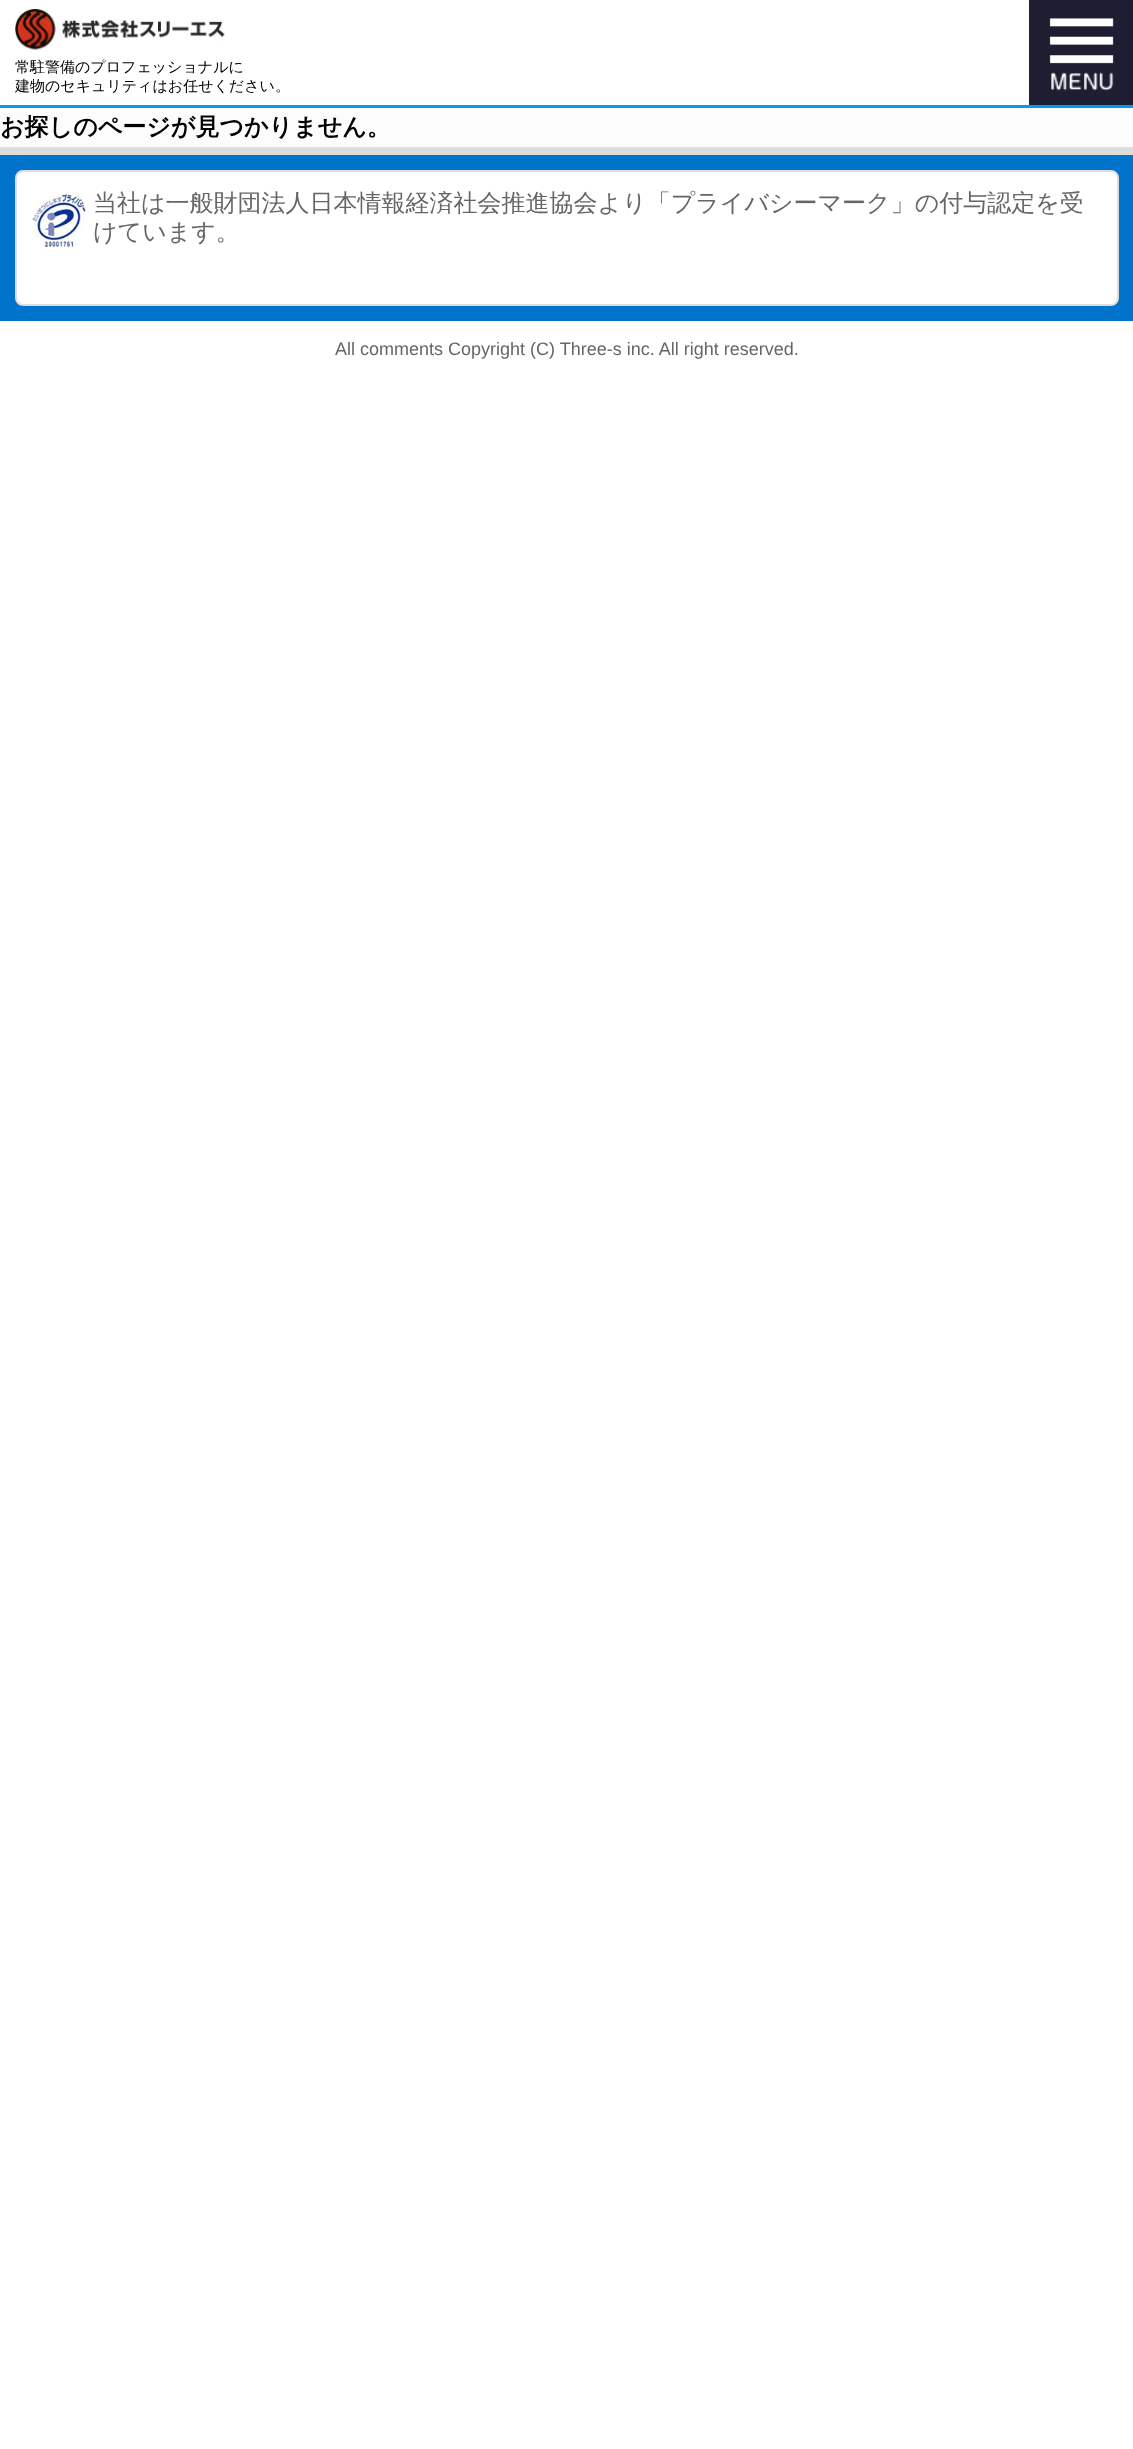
<svg xmlns="http://www.w3.org/2000/svg" width="1133" height="2449" viewBox="0 0 1133 2449">
  <rect width="100%" height="100%" fill="#ffffff"/>
  <rect x="0" y="105" width="1133" height="3" fill="#0099ff"/>
  <image x="15" y="9" width="210" height="41" href="img1.png"/>
  <image x="1029" y="0" width="104" height="105" href="img2.png"/>
  <text x="15" y="72" font-family="WenQuanYi Zen Hei" font-size="15" font-weight="500" fill="#000000">常駐警備のプロフェッショナルに</text>
  <text x="15" y="91" font-family="WenQuanYi Zen Hei" font-size="15" font-weight="500" fill="#000000">建物のセキュリティはお任せください。</text>
  <rect x="0" y="108" width="1133" height="39" fill="#fcfcfc"/>
  <text x="0" y="135" font-family="WenQuanYi Zen Hei" font-size="24" font-weight="bold" fill="#000000">お探しのページが見つかりません。</text>
  <rect x="0" y="155" width="1133" height="166" fill="#0074ca"/>
  <rect x="0" y="147" width="1133" height="8" fill="#dddddd"/>
  <rect x="16" y="171" width="1102" height="134" rx="7" fill="#ffffff" stroke="#dddddd" stroke-width="2"/>
  <image x="32" y="193" width="54" height="54" href="img3.png"/>
  <text x="93" y="211" font-family="WenQuanYi Zen Hei" font-size="24" font-weight="500" fill="#666666">当社は一般財団法人日本情報経済社会推進協会より「プライバシーマーク」の付与認定を受</text>
  <text x="93" y="240" font-family="WenQuanYi Zen Hei" font-size="24" font-weight="500" fill="#666666">けています。</text>
  <text x="335" y="355" font-family="Liberation Sans" font-size="18" fill="#666666">All comments Copyright (C) Three-s inc. All right reserved.</text>
</svg>
